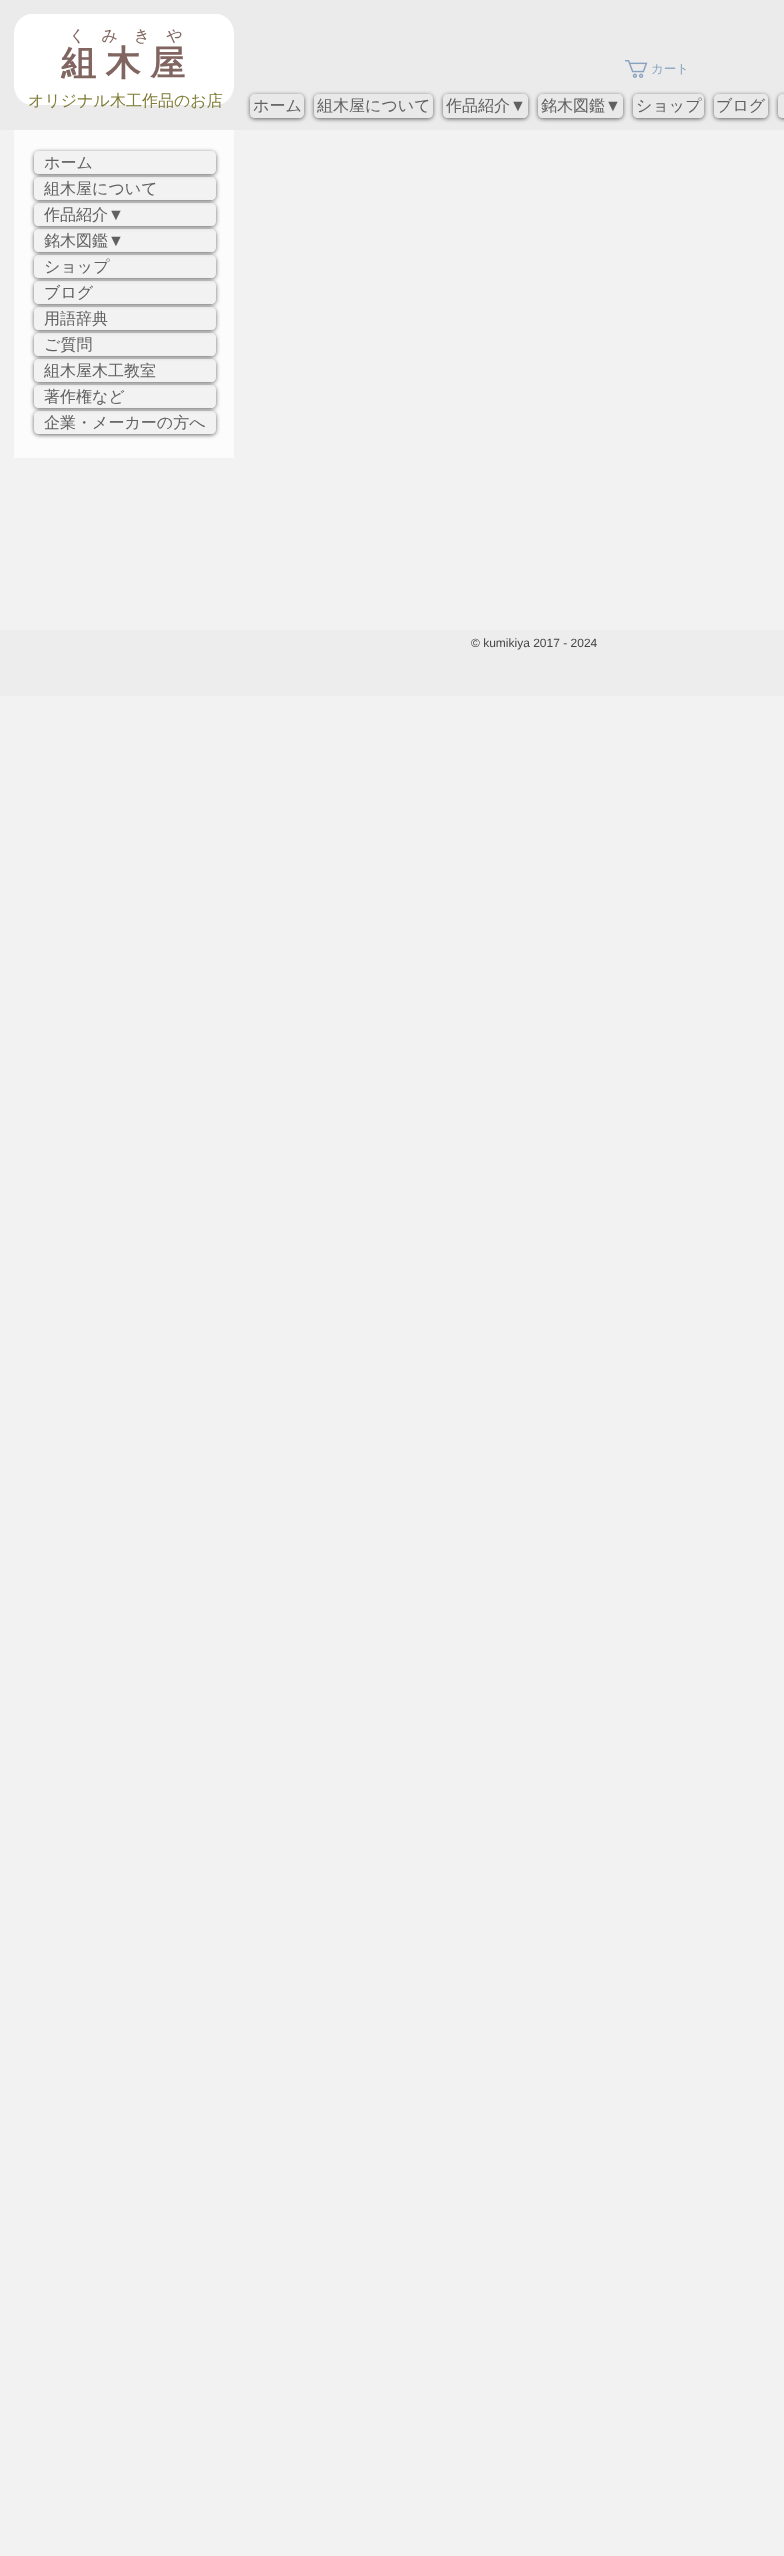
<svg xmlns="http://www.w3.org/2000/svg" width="784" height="2556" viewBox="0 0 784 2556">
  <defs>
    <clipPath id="clip1"><path d="M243 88H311V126H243ZM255 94H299C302 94 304 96 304 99V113C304 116 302 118 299 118H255C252 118 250 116 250 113V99C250 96 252 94 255 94Z" clip-rule="evenodd"/></clipPath>
    <filter id="blur1" x="-50%" y="-200%" width="200%" height="500%"><feGaussianBlur stdDeviation="2"/></filter>
    <clipPath id="clip2"><path d="M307 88H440V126H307ZM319 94H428C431 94 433 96 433 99V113C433 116 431 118 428 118H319C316 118 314 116 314 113V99C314 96 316 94 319 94Z" clip-rule="evenodd"/></clipPath>
    <clipPath id="clip3"><path d="M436 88H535V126H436ZM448 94H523C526 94 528 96 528 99V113C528 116 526 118 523 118H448C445 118 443 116 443 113V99C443 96 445 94 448 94Z" clip-rule="evenodd"/></clipPath>
    <clipPath id="clip4"><path d="M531 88H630V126H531ZM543 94H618C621 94 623 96 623 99V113C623 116 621 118 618 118H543C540 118 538 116 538 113V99C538 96 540 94 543 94Z" clip-rule="evenodd"/></clipPath>
    <clipPath id="clip5"><path d="M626 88H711V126H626ZM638 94H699C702 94 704 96 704 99V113C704 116 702 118 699 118H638C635 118 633 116 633 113V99C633 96 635 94 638 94Z" clip-rule="evenodd"/></clipPath>
    <clipPath id="clip6"><path d="M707 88H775V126H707ZM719 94H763C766 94 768 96 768 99V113C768 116 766 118 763 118H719C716 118 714 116 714 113V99C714 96 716 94 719 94Z" clip-rule="evenodd"/></clipPath>
    <clipPath id="clip7"><path d="M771 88H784V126H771ZM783 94H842C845 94 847 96 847 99V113C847 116 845 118 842 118H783C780 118 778 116 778 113V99C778 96 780 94 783 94Z" clip-rule="evenodd"/></clipPath>
    <clipPath id="clip8"><path d="M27 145H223V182H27ZM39 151H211C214 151 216 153 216 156V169C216 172 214 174 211 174H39C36 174 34 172 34 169V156C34 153 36 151 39 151Z" clip-rule="evenodd"/></clipPath>
    <clipPath id="clip9"><path d="M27 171H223V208H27ZM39 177H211C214 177 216 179 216 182V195C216 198 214 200 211 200H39C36 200 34 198 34 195V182C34 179 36 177 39 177Z" clip-rule="evenodd"/></clipPath>
    <clipPath id="clip10"><path d="M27 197H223V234H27ZM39 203H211C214 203 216 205 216 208V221C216 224 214 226 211 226H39C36 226 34 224 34 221V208C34 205 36 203 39 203Z" clip-rule="evenodd"/></clipPath>
    <clipPath id="clip11"><path d="M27 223H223V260H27ZM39 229H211C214 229 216 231 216 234V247C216 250 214 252 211 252H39C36 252 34 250 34 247V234C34 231 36 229 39 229Z" clip-rule="evenodd"/></clipPath>
    <clipPath id="clip12"><path d="M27 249H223V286H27ZM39 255H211C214 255 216 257 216 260V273C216 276 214 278 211 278H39C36 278 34 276 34 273V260C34 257 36 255 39 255Z" clip-rule="evenodd"/></clipPath>
    <clipPath id="clip13"><path d="M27 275H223V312H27ZM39 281H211C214 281 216 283 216 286V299C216 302 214 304 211 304H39C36 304 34 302 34 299V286C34 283 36 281 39 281Z" clip-rule="evenodd"/></clipPath>
    <clipPath id="clip14"><path d="M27 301H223V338H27ZM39 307H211C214 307 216 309 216 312V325C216 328 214 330 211 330H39C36 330 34 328 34 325V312C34 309 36 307 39 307Z" clip-rule="evenodd"/></clipPath>
    <clipPath id="clip15"><path d="M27 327H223V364H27ZM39 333H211C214 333 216 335 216 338V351C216 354 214 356 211 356H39C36 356 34 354 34 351V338C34 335 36 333 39 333Z" clip-rule="evenodd"/></clipPath>
    <clipPath id="clip16"><path d="M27 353H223V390H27ZM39 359H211C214 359 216 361 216 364V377C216 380 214 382 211 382H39C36 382 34 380 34 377V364C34 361 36 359 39 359Z" clip-rule="evenodd"/></clipPath>
    <clipPath id="clip17"><path d="M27 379H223V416H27ZM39 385H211C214 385 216 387 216 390V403C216 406 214 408 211 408H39C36 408 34 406 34 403V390C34 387 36 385 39 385Z" clip-rule="evenodd"/></clipPath>
    <clipPath id="clip18"><path d="M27 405H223V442H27ZM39 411H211C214 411 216 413 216 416V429C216 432 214 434 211 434H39C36 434 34 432 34 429V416C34 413 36 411 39 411Z" clip-rule="evenodd"/></clipPath>
  </defs>
  <rect width="100%" height="100%" fill="#f2f2f2"/>
  <rect x="0" y="0" width="784" height="130" fill="#ebebeb"/>
  <path d="M216 105H32C22 105 14 96 14 85V34C14 23 22 14 32 14H216C226 14 234 23 234 34V85C234 96 226 105 216 105Z" fill="#ffffff"/>
  <text x="69" y="41" font-family="WenQuanYi Zen Hei" font-size="16" font-weight="500" fill="#806560">く　み　き　や</text>
  <text x="61" y="75" word-spacing="-1" font-family="WenQuanYi Zen Hei" font-size="35" font-weight="bold" fill="#806560">組 木 屋</text>
  <image x="625" y="60" width="23" height="18" href="img1.png"/>
  <text x="651" y="73" font-family="WenQuanYi Zen Hei" font-size="12.5" font-weight="500" fill="#88a2bf">カート</text>
  <text x="28" y="106" font-family="WenQuanYi Zen Hei" font-size="16" font-weight="500" fill="#807c37">オリジナル木工作品のお店</text>
  <g clip-path="url(#clip1)">
    <rect x="250" y="95" width="54" height="24" rx="5" fill="#000000" fill-opacity="0.6" filter="url(#blur1)"/>
  </g>
  <rect x="250" y="94" width="54" height="24" rx="5" fill="#e8e8e8" fill-opacity="0.5"/>
  <text x="253" y="111" font-family="WenQuanYi Zen Hei" font-size="16" font-weight="500" fill="#606060">ホーム</text>
  <g clip-path="url(#clip2)">
    <rect x="314" y="95" width="119" height="24" rx="5" fill="#000000" fill-opacity="0.6" filter="url(#blur1)"/>
  </g>
  <rect x="314" y="94" width="119" height="24" rx="5" fill="#e8e8e8" fill-opacity="0.5"/>
  <text x="317" y="111" font-family="WenQuanYi Zen Hei" font-size="16" font-weight="500" fill="#606060">組木屋について</text>
  <g clip-path="url(#clip3)">
    <rect x="443" y="95" width="85" height="24" rx="5" fill="#000000" fill-opacity="0.6" filter="url(#blur1)"/>
  </g>
  <rect x="443" y="94" width="85" height="24" rx="5" fill="#e8e8e8" fill-opacity="0.5"/>
  <text x="446" y="111" font-family="WenQuanYi Zen Hei" font-size="16" font-weight="500" fill="#606060">作品紹介</text>
  <text x="510" y="111" font-family="Liberation Sans" font-size="16" fill="#606060">▼</text>
  <g clip-path="url(#clip4)">
    <rect x="538" y="95" width="85" height="24" rx="5" fill="#000000" fill-opacity="0.6" filter="url(#blur1)"/>
  </g>
  <rect x="538" y="94" width="85" height="24" rx="5" fill="#e8e8e8" fill-opacity="0.5"/>
  <text x="541" y="111" font-family="WenQuanYi Zen Hei" font-size="16" font-weight="500" fill="#606060">銘木図鑑</text>
  <text x="605" y="111" font-family="Liberation Sans" font-size="16" fill="#606060">▼</text>
  <g clip-path="url(#clip5)">
    <rect x="633" y="95" width="71" height="24" rx="5" fill="#000000" fill-opacity="0.6" filter="url(#blur1)"/>
  </g>
  <rect x="633" y="94" width="71" height="24" rx="5" fill="#e8e8e8" fill-opacity="0.5"/>
  <text x="636" y="111" font-family="WenQuanYi Zen Hei" font-size="16" font-weight="500" fill="#606060">ショップ</text>
  <g clip-path="url(#clip6)">
    <rect x="714" y="95" width="54" height="24" rx="5" fill="#000000" fill-opacity="0.6" filter="url(#blur1)"/>
  </g>
  <rect x="714" y="94" width="54" height="24" rx="5" fill="#e8e8e8" fill-opacity="0.5"/>
  <text x="716" y="111" font-family="WenQuanYi Zen Hei" font-size="16" font-weight="500" fill="#606060">ブログ</text>
  <g clip-path="url(#clip7)">
    <rect x="778" y="95" width="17" height="24" rx="5" fill="#000000" fill-opacity="0.6" filter="url(#blur1)"/>
  </g>
  <rect x="778" y="94" width="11" height="24" rx="5" fill="#e8e8e8" fill-opacity="0.5"/>
  <rect x="14" y="130" width="220" height="328" fill="#fcfcfc"/>
  <g clip-path="url(#clip8)">
    <rect x="34" y="152" width="182" height="23" rx="5" fill="#000000" fill-opacity="0.6" filter="url(#blur1)"/>
  </g>
  <rect x="34" y="151" width="182" height="23" rx="5" fill="#e8e8e8" fill-opacity="0.5"/>
  <text x="44" y="168" font-family="WenQuanYi Zen Hei" font-size="16" font-weight="500" fill="#606060">ホーム</text>
  <g clip-path="url(#clip9)">
    <rect x="34" y="178" width="182" height="23" rx="5" fill="#000000" fill-opacity="0.6" filter="url(#blur1)"/>
  </g>
  <rect x="34" y="177" width="182" height="23" rx="5" fill="#e8e8e8" fill-opacity="0.5"/>
  <text x="44" y="194" font-family="WenQuanYi Zen Hei" font-size="16" font-weight="500" fill="#606060">組木屋について</text>
  <g clip-path="url(#clip10)">
    <rect x="34" y="204" width="182" height="23" rx="5" fill="#000000" fill-opacity="0.6" filter="url(#blur1)"/>
  </g>
  <rect x="34" y="203" width="182" height="23" rx="5" fill="#e8e8e8" fill-opacity="0.5"/>
  <text x="44" y="220" font-family="WenQuanYi Zen Hei" font-size="16" font-weight="500" fill="#606060">作品紹介</text>
  <text x="108" y="220" font-family="Liberation Sans" font-size="16" fill="#606060">▼</text>
  <g clip-path="url(#clip11)">
    <rect x="34" y="230" width="182" height="23" rx="5" fill="#000000" fill-opacity="0.6" filter="url(#blur1)"/>
  </g>
  <rect x="34" y="229" width="182" height="23" rx="5" fill="#e8e8e8" fill-opacity="0.5"/>
  <text x="44" y="246" font-family="WenQuanYi Zen Hei" font-size="16" font-weight="500" fill="#606060">銘木図鑑</text>
  <text x="108" y="246" font-family="Liberation Sans" font-size="16" fill="#606060">▼</text>
  <g clip-path="url(#clip12)">
    <rect x="34" y="256" width="182" height="23" rx="5" fill="#000000" fill-opacity="0.6" filter="url(#blur1)"/>
  </g>
  <rect x="34" y="255" width="182" height="23" rx="5" fill="#e8e8e8" fill-opacity="0.5"/>
  <text x="44" y="272" font-family="WenQuanYi Zen Hei" font-size="16" font-weight="500" fill="#606060">ショップ</text>
  <g clip-path="url(#clip13)">
    <rect x="34" y="282" width="182" height="23" rx="5" fill="#000000" fill-opacity="0.6" filter="url(#blur1)"/>
  </g>
  <rect x="34" y="281" width="182" height="23" rx="5" fill="#e8e8e8" fill-opacity="0.5"/>
  <text x="44" y="298" font-family="WenQuanYi Zen Hei" font-size="16" font-weight="500" fill="#606060">ブログ</text>
  <g clip-path="url(#clip14)">
    <rect x="34" y="308" width="182" height="23" rx="5" fill="#000000" fill-opacity="0.6" filter="url(#blur1)"/>
  </g>
  <rect x="34" y="307" width="182" height="23" rx="5" fill="#e8e8e8" fill-opacity="0.5"/>
  <text x="44" y="324" font-family="WenQuanYi Zen Hei" font-size="16" font-weight="500" fill="#606060">用語辞典</text>
  <g clip-path="url(#clip15)">
    <rect x="34" y="334" width="182" height="23" rx="5" fill="#000000" fill-opacity="0.6" filter="url(#blur1)"/>
  </g>
  <rect x="34" y="333" width="182" height="23" rx="5" fill="#e8e8e8" fill-opacity="0.5"/>
  <text x="44" y="350" font-family="WenQuanYi Zen Hei" font-size="16" font-weight="500" fill="#606060">ご質問</text>
  <g clip-path="url(#clip16)">
    <rect x="34" y="360" width="182" height="23" rx="5" fill="#000000" fill-opacity="0.6" filter="url(#blur1)"/>
  </g>
  <rect x="34" y="359" width="182" height="23" rx="5" fill="#e8e8e8" fill-opacity="0.5"/>
  <text x="44" y="376" font-family="WenQuanYi Zen Hei" font-size="16" font-weight="500" fill="#606060">組木屋木工教室</text>
  <g clip-path="url(#clip17)">
    <rect x="34" y="386" width="182" height="23" rx="5" fill="#000000" fill-opacity="0.6" filter="url(#blur1)"/>
  </g>
  <rect x="34" y="385" width="182" height="23" rx="5" fill="#e8e8e8" fill-opacity="0.5"/>
  <text x="44" y="402" font-family="WenQuanYi Zen Hei" font-size="16" font-weight="500" fill="#606060">著作権など</text>
  <g clip-path="url(#clip18)">
    <rect x="34" y="412" width="182" height="23" rx="5" fill="#000000" fill-opacity="0.6" filter="url(#blur1)"/>
  </g>
  <rect x="34" y="411" width="182" height="23" rx="5" fill="#e8e8e8" fill-opacity="0.5"/>
  <text x="44" y="428" font-family="WenQuanYi Zen Hei" font-size="16" font-weight="500" fill="#606060">企業・メーカーの方へ</text>
  <rect x="0" y="630" width="784" height="66" fill="#ededed"/>
  <text x="471" y="647" font-family="Liberation Sans" font-size="12" fill="#454444">© kumikiya 2017 - 2024</text>
</svg>
